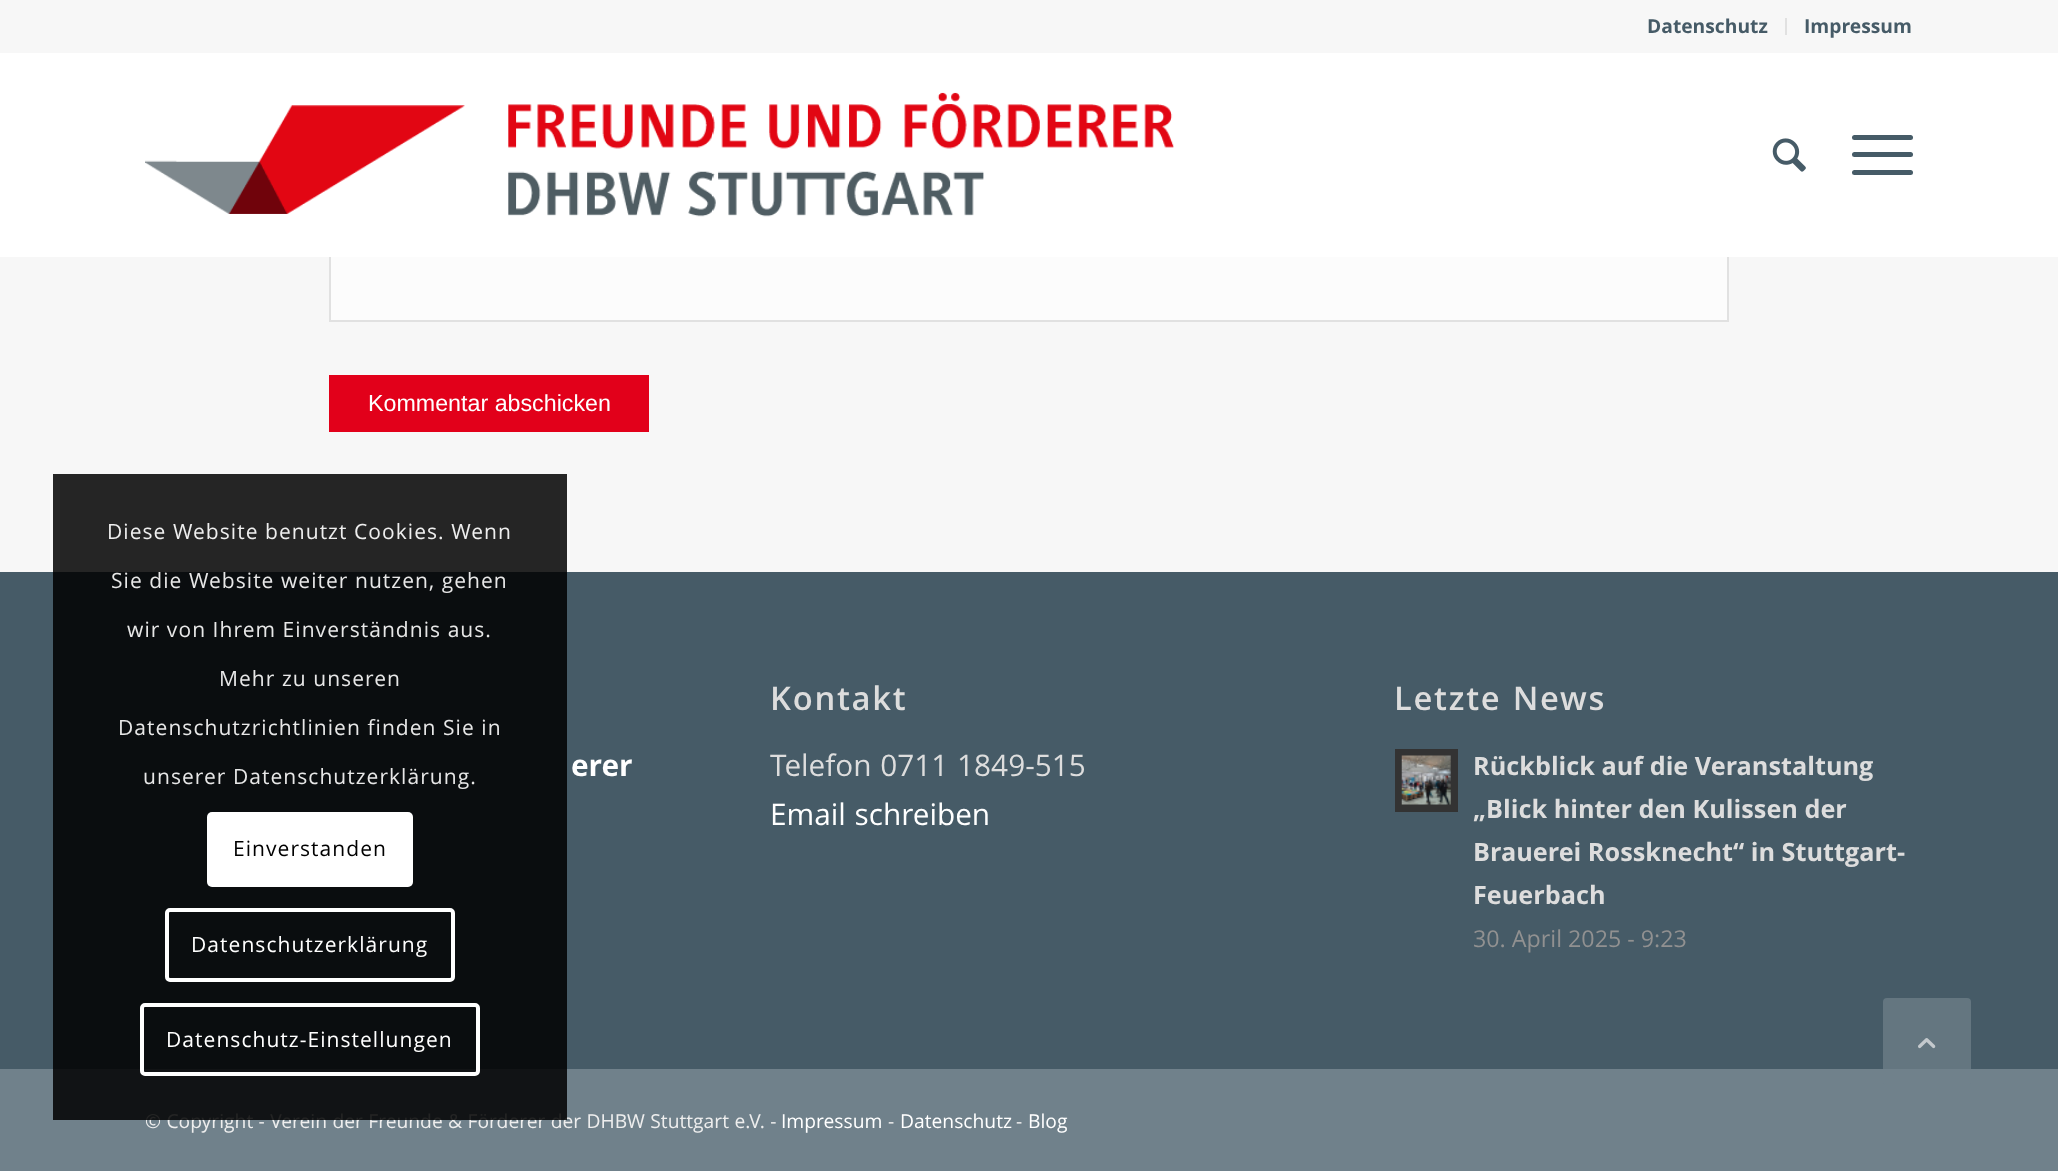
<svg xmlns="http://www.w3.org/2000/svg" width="2058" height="1171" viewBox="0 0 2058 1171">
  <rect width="100%" height="100%" fill="#f7f7f7"/>
  <rect x="1785" y="18" width="2" height="17" fill="#e1e1e1"/>
  <text x="1647" y="33" font-family="Open Sans" font-size="19.25" font-weight="bold" fill="#465b67">Datenschutz</text>
  <text x="1804" y="33" font-family="Open Sans" font-size="19.25" font-weight="bold" fill="#465b67">Impressum</text>
  <rect x="331" y="257" width="1396" height="63" fill="#fcfcfc"/>
  <rect x="330" y="61" width="1398" height="260" fill="none" stroke="#e1e1e1" stroke-width="2"/>
  <rect x="0" y="53" width="2058" height="204" fill="#ffffff"/>
  <image x="145" y="92" width="1029" height="125" href="img1.png"/>
  <image x="1772" y="138" width="34" height="34" href="img2.png"/>
  <rect x="1852" y="152" width="61" height="5" rx="2.5" fill="#465b67"/>
  <rect x="1852" y="135" width="61" height="5" rx="2.5" fill="#465b67"/>
  <rect x="1852" y="170" width="61" height="5" rx="2.5" fill="#465b67"/>
  <rect x="329" y="375" width="320" height="57" fill="#e2001a"/>
  <text x="368" y="411" font-family="Liberation Sans" font-size="23.25" fill="#ffffff">Kommentar abschicken</text>
  <rect x="0" y="572" width="2058" height="497" fill="#465b67"/>
  <text x="571" y="776" word-spacing="1" font-family="Open Sans" font-size="29.75" font-weight="bold" fill="#ffffff">erer</text>
  <text x="770" y="710" font-family="Open Sans" font-size="32.75" font-weight="600" letter-spacing="1.75" fill="#dddddd">Kontakt</text>
  <text x="770" y="776" word-spacing="1" font-family="Open Sans" font-size="29.75" fill="#dddddd">Telefon 0711 1849-515</text>
  <text x="770" y="825" word-spacing="1" font-family="Open Sans" font-size="29.75" fill="#ffffff">Email schreiben</text>
  <text x="1394" y="710" word-spacing="1" font-family="Open Sans" font-size="32.75" font-weight="600" letter-spacing="1.75" fill="#dddddd">Letzte News</text>
  <rect x="1395" y="749" width="63" height="63" fill="#333333"/>
  <image x="1401" y="755" width="50" height="50" href="img3.png"/>
  <text x="1473" y="775" font-family="Open Sans" font-size="25.25" font-weight="bold" fill="#dddddd">Rückblick auf die Veranstaltung</text>
  <text x="1473" y="818" font-family="Open Sans" font-size="25.25" font-weight="bold" fill="#dddddd">„Blick hinter den Kulissen der</text>
  <text x="1473" y="861" font-family="Open Sans" font-size="25.25" font-weight="bold" fill="#dddddd">Brauerei Rossknecht“ in Stuttgart-</text>
  <text x="1473" y="904" font-family="Open Sans" font-size="25.25" font-weight="bold" fill="#dddddd">Feuerbach</text>
  <text x="1473" y="947" font-family="Open Sans" font-size="23.25" fill="#919191">30. April 2025 - 9:23</text>
  <rect x="0" y="1069" width="2058" height="102" fill="#70818b"/>
  <text x="145" y="1128" word-spacing="0.4" font-family="Open Sans" font-size="19.25" fill="#eeeeee">© Copyright - Verein der Freunde &amp; Förderer der DHBW Stuttgart e.V. -</text>
  <text x="781" y="1128" font-family="Open Sans" font-size="19.25" fill="#ffffff">Impressum</text>
  <text x="888" y="1128" font-family="Open Sans" font-size="19.25" fill="#eeeeee">-</text>
  <text x="900" y="1128" font-family="Open Sans" font-size="19.25" fill="#ffffff">Datenschutz</text>
  <text x="1016" y="1128" font-family="Open Sans" font-size="19.25" fill="#eeeeee">-</text>
  <text x="1028" y="1128" font-family="Open Sans" font-size="19.25" fill="#ffffff">Blog</text>
  <rect x="53" y="474" width="514" height="646" fill="#000000" fill-opacity="0.85"/>
  <text x="107" y="539" font-family="Open Sans" font-size="21" letter-spacing="1.05" fill="#eeeeee">Diese Website benutzt Cookies. Wenn</text>
  <text x="111" y="588" font-family="Open Sans" font-size="21" letter-spacing="1.05" fill="#e7e7e7">Sie die Website weiter nutzen, gehen</text>
  <text x="127" y="637" font-family="Open Sans" font-size="21" letter-spacing="1.05" fill="#e7e7e7">wir von Ihrem Einverständnis aus.</text>
  <text x="219" y="686" font-family="Open Sans" font-size="21" letter-spacing="1.05" fill="#e7e7e7">Mehr zu unseren</text>
  <text x="118" y="735" font-family="Open Sans" font-size="21" letter-spacing="1.05" fill="#e7e7e7">Datenschutzrichtlinien finden Sie in</text>
  <text x="143" y="784" font-family="Open Sans" font-size="21" letter-spacing="1.05" fill="#e7e7e7">unserer Datenschutzerklärung.</text>
  <rect x="207" y="812" width="206" height="75" rx="5" fill="#ffffff"/>
  <text x="233" y="856" font-family="Open Sans" font-size="21" letter-spacing="1.05" fill="#000000">Einverstanden</text>
  <rect x="167" y="910" width="286" height="70" rx="3" fill="none" stroke="#ffffff" stroke-width="4"/>
  <text x="191" y="952" font-family="Open Sans" font-size="21" letter-spacing="1.05" fill="#ffffff">Datenschutzerklärung</text>
  <rect x="142" y="1005" width="336" height="69" rx="3" fill="none" stroke="#ffffff" stroke-width="4"/>
  <text x="166" y="1047" font-family="Open Sans" font-size="21" letter-spacing="1.05" fill="#ffffff">Datenschutz-Einstellungen</text>
  <rect x="1883" y="998" width="88" height="87" rx="4" fill="#70818b" fill-opacity="0.7"/>
  <image x="1918" y="1038" width="18" height="11" href="img4.png"/>
</svg>
